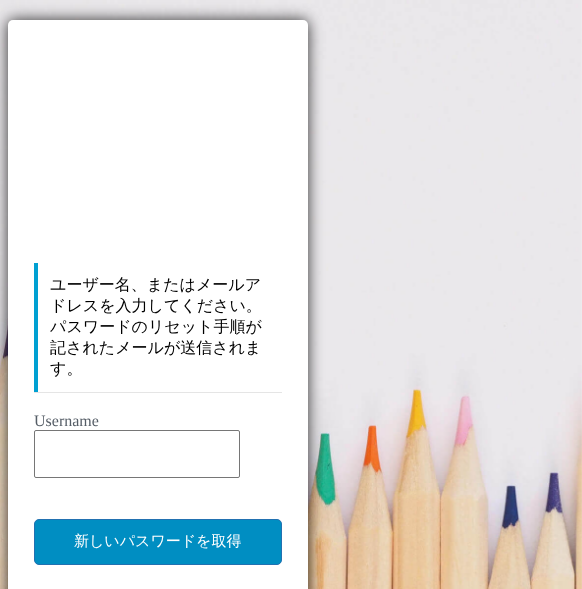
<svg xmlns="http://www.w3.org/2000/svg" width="582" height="589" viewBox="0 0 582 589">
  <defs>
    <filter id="blur1" x="-50%" y="-200%" width="200%" height="500%"><feGaussianBlur stdDeviation="7.5"/></filter>
    <clipPath id="clip1"><rect x="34" y="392" width="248" height="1"/></clipPath>
    <filter id="blur2" x="-50%" y="-200%" width="200%" height="500%"><feGaussianBlur stdDeviation="0.5"/></filter>
  </defs>
  <rect width="100%" height="100%" fill="#ffffff"/>
  <image x="0" y="0" width="582" height="589" href="img1.png"/>
  <rect x="8" y="20" width="300" height="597" rx="5" fill="#000000" fill-opacity="0.8" filter="url(#blur1)"/>
  <rect x="8" y="20" width="300" height="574" rx="5" fill="#ffffff"/>
  <g clip-path="url(#clip1)">
    <rect x="34" y="264" width="248" height="129" fill="#000000" fill-opacity="0.1" filter="url(#blur2)"/>
  </g>
  <rect x="34" y="263" width="4" height="129" fill="#00a0d2"/>
  <text x="50" y="290" font-family="WenQuanYi Zen Hei" font-size="16" font-weight="500" fill="#000000">ユーザー名、またはメールア</text>
  <text x="50" y="311" font-family="WenQuanYi Zen Hei" font-size="16" font-weight="500" fill="#000000">ドレスを入力してください。</text>
  <text x="50" y="332" font-family="WenQuanYi Zen Hei" font-size="16" font-weight="500" fill="#000000">パスワードのリセット手順が</text>
  <text x="50" y="353" font-family="WenQuanYi Zen Hei" font-size="16" font-weight="500" fill="#000000">記されたメールが送信されま</text>
  <text x="50" y="374" font-family="WenQuanYi Zen Hei" font-size="16" font-weight="500" fill="#000000">す。</text>
  <text x="34" y="426" font-family="Liberation Serif" font-size="16" fill="#555d66">Username</text>
  <rect x="34.5" y="430.5" width="205" height="47" rx="1.5" fill="none" stroke="#767676"/>
  <rect x="34.5" y="519.5" width="247" height="45" rx="4.5" fill="#008ec2" stroke="#2271b1"/>
  <text x="74" y="546" font-family="WenQuanYi Zen Hei" font-size="15" font-weight="500" fill="#ffffff">新しいパスワードを取得</text>
</svg>
